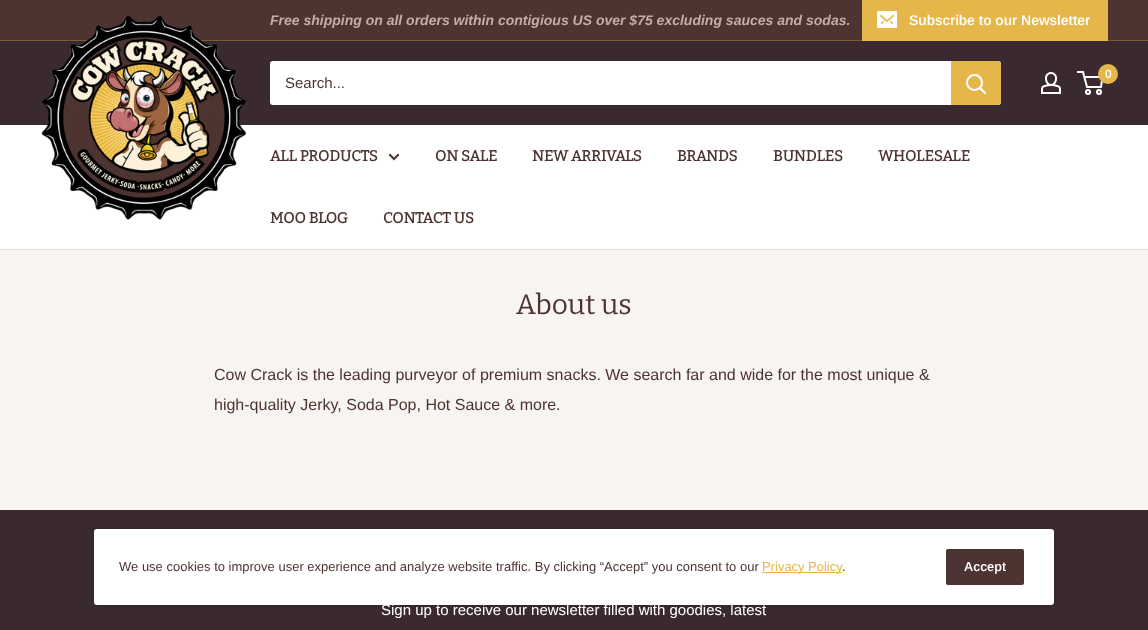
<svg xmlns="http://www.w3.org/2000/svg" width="1148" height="630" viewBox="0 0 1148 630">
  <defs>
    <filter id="blur1" x="-50%" y="-200%" width="200%" height="500%"><feGaussianBlur stdDeviation="2"/></filter>
  </defs>
  <rect width="100%" height="100%" fill="#f7f4f2"/>
  <rect x="0" y="0" width="1148" height="40" fill="#4d3431"/>
  <rect x="0" y="40" width="1148" height="1" fill="#7b5b39"/>
  <text x="270" y="25" font-family="Arimo" font-size="14" font-weight="bold" font-style="italic" fill="#c3aea7">Free shipping on all orders within contigious US over $75 excluding sauces and sodas.</text>
  <rect x="862" y="0" width="246" height="41" fill="#e5b74a"/>
  <image x="877" y="11" width="20" height="17" href="img1.png"/>
  <text x="909" y="25" font-family="Arimo" font-size="14" font-weight="600" fill="#ffffff">Subscribe to our Newsletter</text>
  <rect x="0" y="41" width="1148" height="84" fill="#3a2a2f"/>
  <rect x="0" y="125" width="1148" height="124" fill="#ffffff"/>
  <image x="41" y="15" width="206" height="205" href="img2.png"/>
  <image x="1041" y="72" width="20" height="22" href="img3.png"/>
  <circle cx="1088" cy="92" r="2" fill="none" stroke="#ffffff" stroke-width="2"/>
  <circle cx="1099" cy="92" r="2" fill="none" stroke="#ffffff" stroke-width="2"/>
  <path d="M1084.5 77H1102.5L1101 87H1087L1083 72H1077" fill="none" stroke="#ffffff" stroke-width="2"/>
  <circle cx="1108" cy="74" r="10" fill="#e5b74a"/>
  <text x="1105" y="78" font-family="Arimo" font-size="12" font-weight="600" fill="#ffffff">0</text>
  <rect x="270" y="61" width="731" height="44" rx="3" fill="#ffffff"/>
  <text x="285" y="88" font-family="Arimo" font-size="15" fill="#4d3431">Search...</text>
  <path d="M951 61H998C999.5 61 1001 62.5 1001 64V102C1001 103.5 999.5 105 998 105H951Z" fill="#e5b74a"/>
  <path d="M985 93L980 88" fill="none" stroke="#ffffff" stroke-width="2" stroke-linecap="square"/>
  <circle cx="974.5" cy="82.5" r="7.5" fill="none" stroke="#ffffff" stroke-width="2"/>
  <rect x="0" y="249" width="1148" height="1" fill="#e7e2de"/>
  <text x="270" y="161" font-family="Bitter" font-size="15" font-weight="bold" fill="#4d3431">ALL PRODUCTS</text>
  <path d="M398 155L394 159L390 155" fill="none" stroke="#4d3431" stroke-width="2" stroke-linecap="square"/>
  <text x="435" y="161" font-family="Bitter" font-size="15" font-weight="bold" fill="#4d3431">ON SALE</text>
  <text x="532" y="161" font-family="Bitter" font-size="15" font-weight="bold" fill="#4d3431">NEW ARRIVALS</text>
  <text x="677" y="161" font-family="Bitter" font-size="15" font-weight="bold" fill="#4d3431">BRANDS</text>
  <text x="773" y="161" font-family="Bitter" font-size="15" font-weight="bold" fill="#4d3431">BUNDLES</text>
  <text x="878" y="161" font-family="Bitter" font-size="15" font-weight="bold" fill="#4d3431">WHOLESALE</text>
  <text x="270" y="223" font-family="Bitter" font-size="15" font-weight="bold" fill="#4d3431">MOO BLOG</text>
  <text x="383" y="223" font-family="Bitter" font-size="15" font-weight="bold" fill="#4d3431">CONTACT US</text>
  <text x="516" y="314" font-family="Bitter" font-size="28" fill="#4d3431">About us</text>
  <text x="214" y="380" font-family="Arimo" font-size="16" fill="#4d3431">Cow Crack is the leading purveyor of premium snacks. We search far and wide for the most unique &amp;</text>
  <text x="214" y="410" font-family="Arimo" font-size="16" fill="#4d3431">high-quality Jerky, Soda Pop, Hot Sauce &amp; more.</text>
  <rect x="0" y="510" width="1148" height="120" fill="#3a2a2f"/>
  <rect x="93" y="529" width="962" height="78" rx="4" fill="#000000" fill-opacity="0.1" filter="url(#blur1)"/>
  <rect x="94" y="529" width="960" height="76" rx="3" fill="#ffffff"/>
  <text x="119" y="571" font-family="Arimo" font-size="13" fill="#4d3431">We use cookies to improve user experience and analyze website traffic. By clicking “Accept” you consent to our</text>
  <rect x="762" y="572" width="80" height="1" fill="#e5b74a"/>
  <text x="762" y="571" font-family="Arimo" font-size="13" fill="#e5b74a">Privacy</text>
  <text x="808" y="571" font-family="Arimo" font-size="13" fill="#e5b74a">Policy</text>
  <text x="842" y="571" font-family="Arimo" font-size="13" fill="#4d3431">.</text>
  <rect x="946" y="549" width="78" height="36" rx="2" fill="#4d3431"/>
  <text x="964" y="571" font-family="Arimo" font-size="13" font-weight="600" fill="#ffffff">Accept</text>
  <text x="381" y="615" font-family="Arimo" font-size="15" fill="#ffffff">Sign up to receive our newsletter filled with goodies, latest</text>
</svg>
